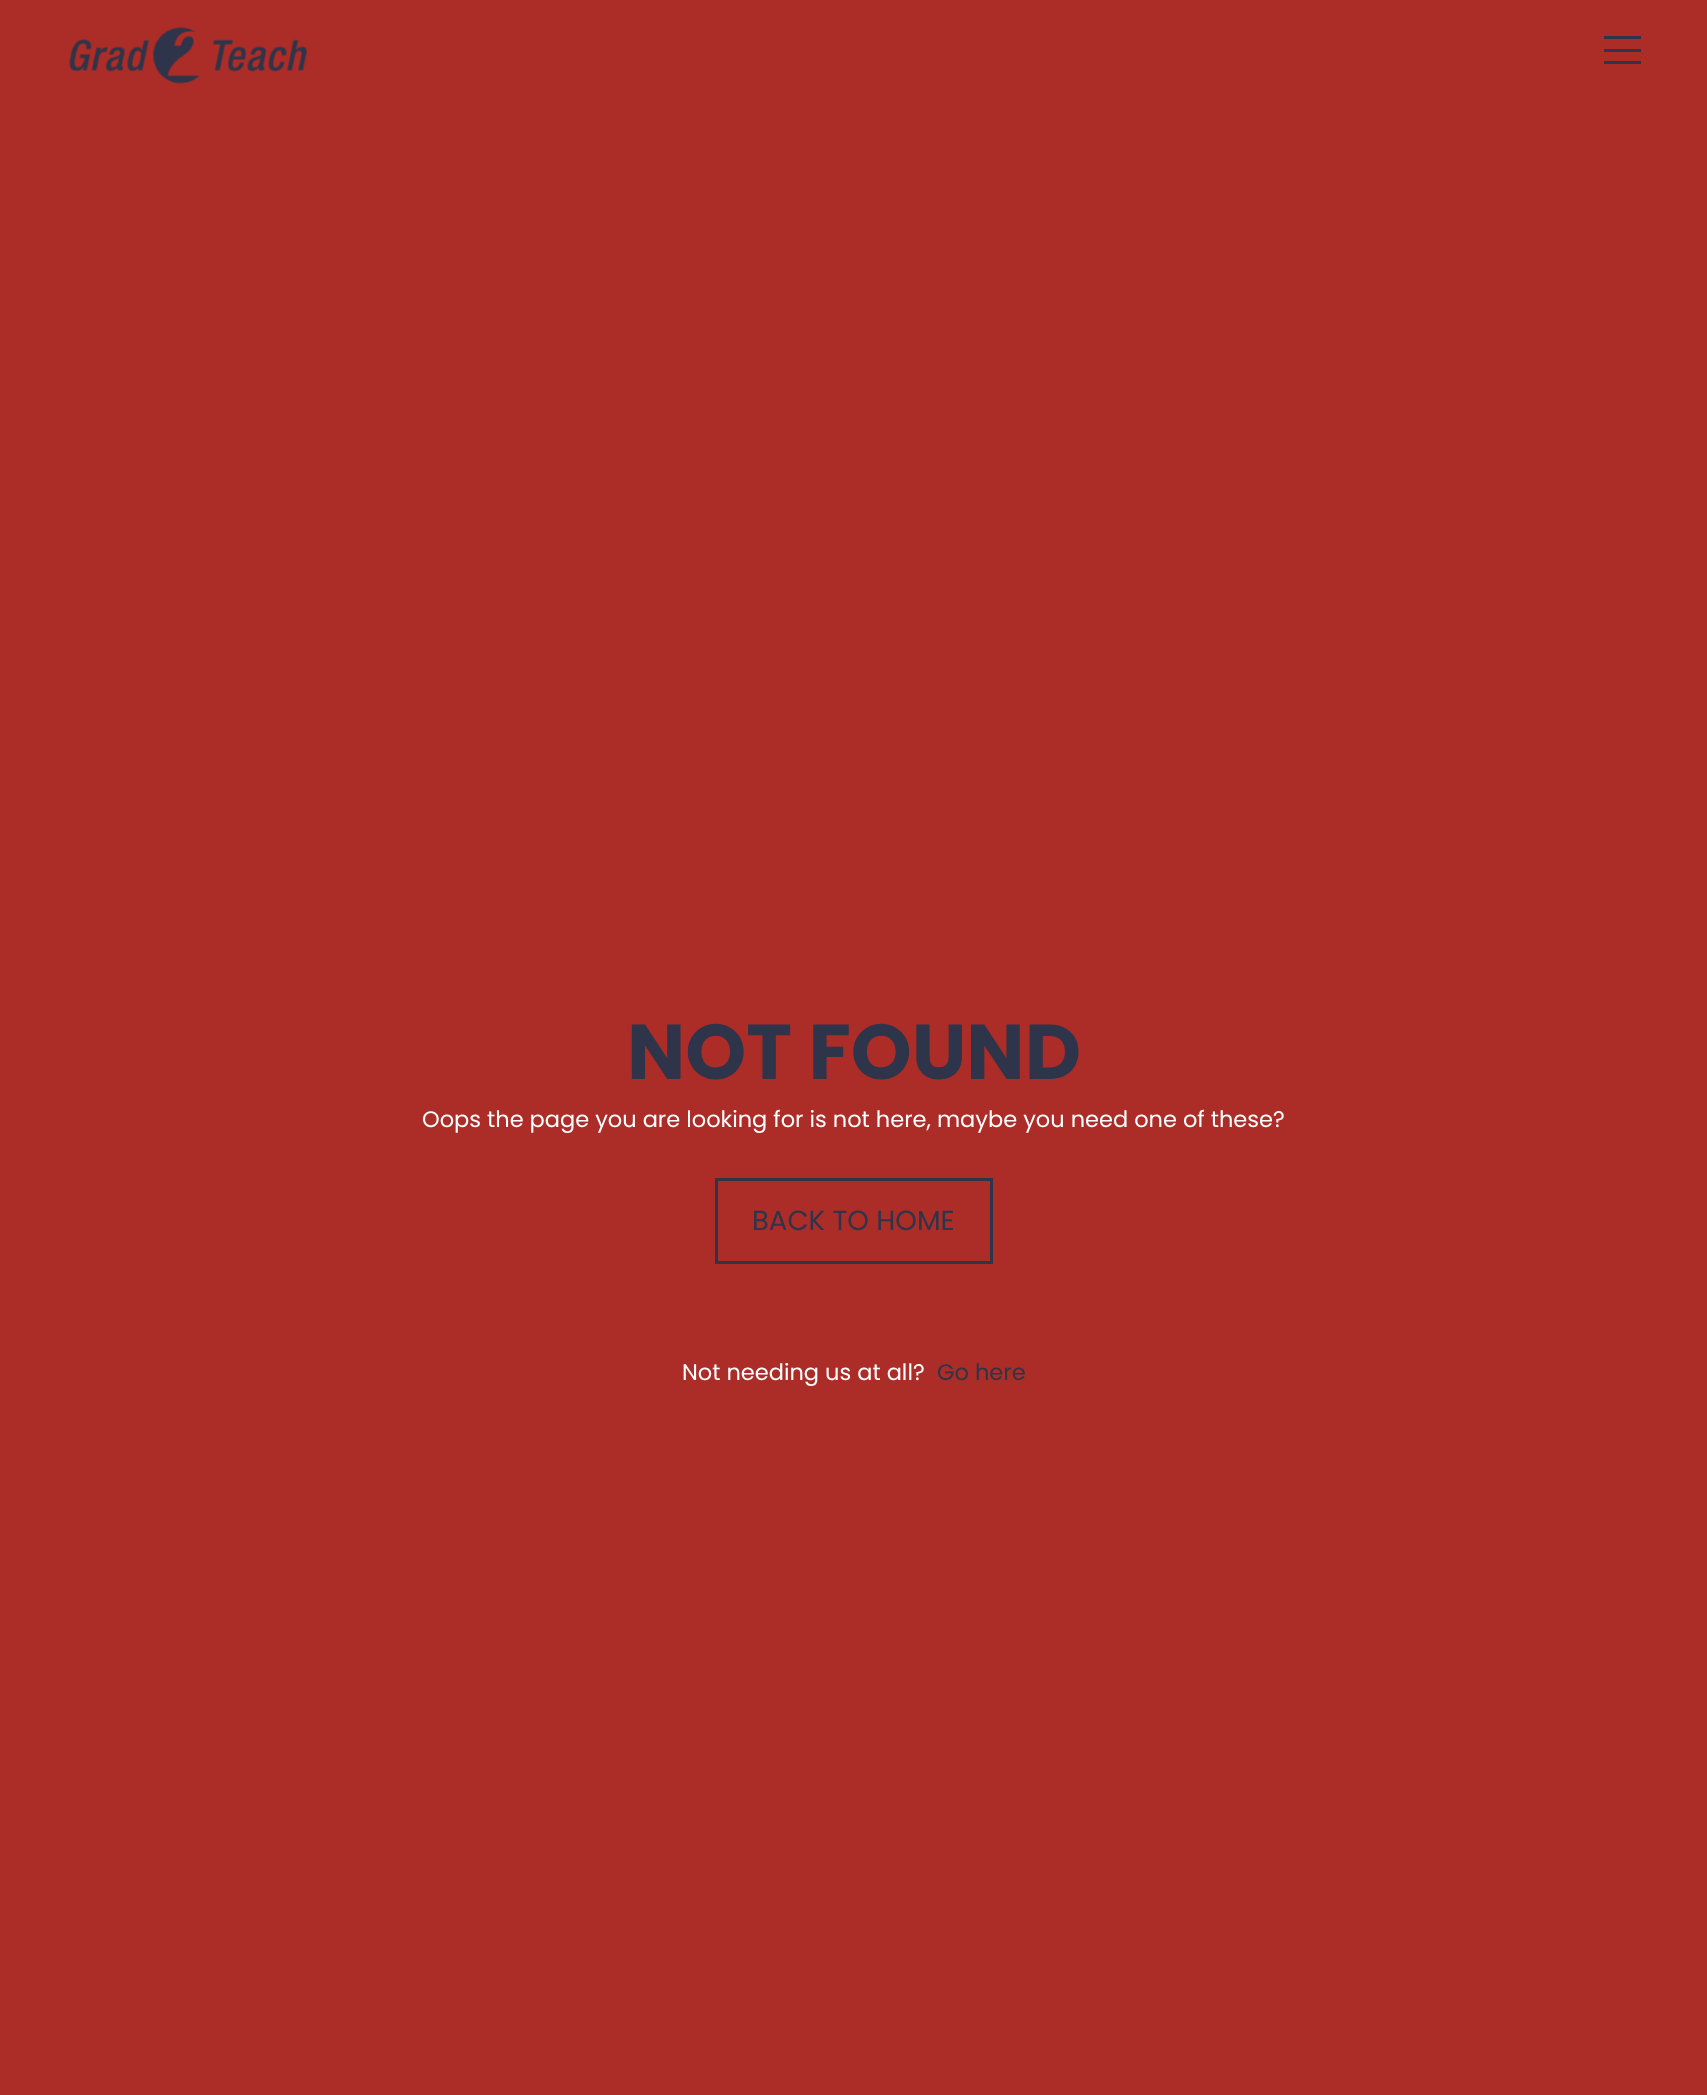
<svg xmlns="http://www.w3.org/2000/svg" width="1707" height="2095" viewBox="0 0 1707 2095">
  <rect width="100%" height="100%" fill="#ac2d28"/>
  <image x="69" y="27" width="238" height="57" href="img1.png"/>
  <rect x="1604" y="49" width="37" height="3" fill="#2e3449"/>
  <rect x="1604" y="36" width="37" height="3" fill="#2e3449"/>
  <rect x="1604" y="61" width="37" height="3" fill="#2e3449"/>
  <text x="627" y="1079" font-family="Poppins" font-size="77.5" font-weight="bold" fill="#2e3449">NOT FOUND</text>
  <text x="422" y="1127" font-family="Poppins" font-size="22.5" fill="#ffffff">Oops the page you are looking for is not here, maybe you need one of these?</text>
  <rect x="716.5" y="1179.5" width="275" height="83" fill="none" stroke="#2e3449" stroke-width="3"/>
  <text x="752" y="1230" font-family="Poppins" font-size="27.5" fill="#2e3449">BACK TO HOME</text>
  <text x="682" y="1380" font-family="Poppins" font-size="22.5" fill="#ffffff">Not needing us at all?</text>
  <text x="937" y="1380" font-family="Poppins" font-size="22.5" fill="#2e3449">Go here</text>
</svg>
